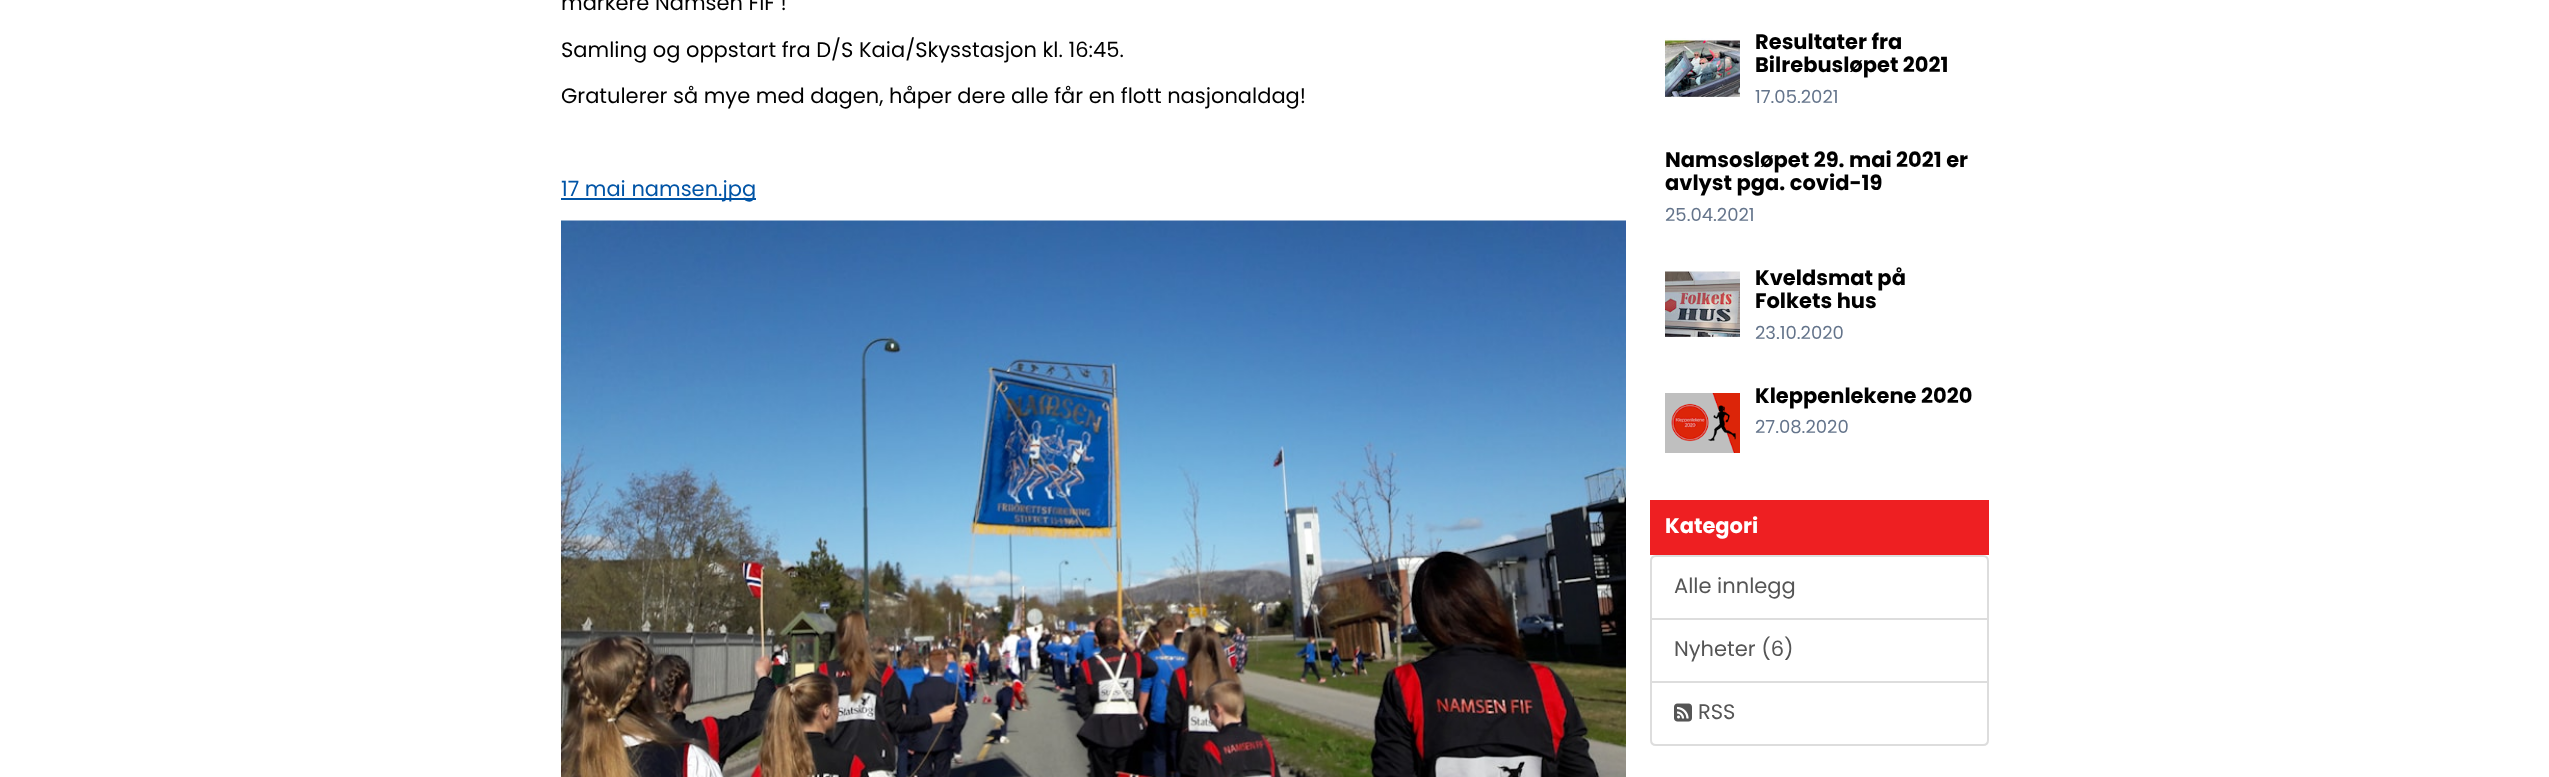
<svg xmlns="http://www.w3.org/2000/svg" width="2549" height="777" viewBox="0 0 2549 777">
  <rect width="100%" height="100%" fill="#ffffff"/>
  <text x="561" y="10" font-family="Poppins" font-size="21" fill="#000000">markere Namsen FIF !</text>
  <text x="561" y="57" font-family="Poppins" font-size="21" fill="#000000">Samling og oppstart fra D/S Kaia/Skysstasjon kl. 16:45.</text>
  <text x="561" y="103" font-family="Poppins" font-size="21" fill="#000000">Gratulerer så mye med dagen, håper dere alle får en flott nasjonaldag!</text>
  <rect x="561" y="198" width="195" height="2" fill="#0054a6"/>
  <text x="561" y="196" font-family="Poppins" font-size="21" fill="#0054a6">17 mai namsen.jpg</text>
  <image x="561" y="220" width="1065" height="557" href="img1.png"/>
  <image x="1665" y="38" width="75" height="59" href="img2.png"/>
  <text x="1755" y="49" font-family="Poppins" font-size="21" font-weight="bold" fill="#000000">Resultater fra</text>
  <text x="1755" y="72" font-family="Poppins" font-size="21" font-weight="bold" fill="#000000">Bilrebusløpet 2021</text>
  <text x="1755" y="103" font-family="Poppins" font-size="18" fill="#64748b">17.05.2021</text>
  <text x="1665" y="167" font-family="Poppins" font-size="21" font-weight="bold" fill="#000000">Namsosløpet 29. mai 2021 er</text>
  <text x="1665" y="190" font-family="Poppins" font-size="21" font-weight="bold" fill="#000000">avlyst pga. covid-19</text>
  <text x="1665" y="221" font-family="Poppins" font-size="18" fill="#64748b">25.04.2021</text>
  <image x="1665" y="271" width="75" height="68" href="img3.png"/>
  <text x="1755" y="285" font-family="Poppins" font-size="21" font-weight="bold" fill="#000000">Kveldsmat på</text>
  <text x="1755" y="308" font-family="Poppins" font-size="21" font-weight="bold" fill="#000000">Folkets hus</text>
  <text x="1755" y="339" font-family="Poppins" font-size="18" fill="#64748b">23.10.2020</text>
  <image x="1665" y="393" width="75" height="60" href="img4.png"/>
  <text x="1755" y="403" font-family="Poppins" font-size="21" font-weight="bold" fill="#000000">Kleppenlekene 2020</text>
  <text x="1755" y="433" font-family="Poppins" font-size="18" fill="#64748b">27.08.2020</text>
  <rect x="1650" y="500" width="339" height="55" fill="#ee1f22"/>
  <text x="1665" y="533" font-family="Poppins" font-size="21" font-weight="bold" fill="#ffffff">Kategori</text>
  <path d="M1656 556H1983C1986 556 1988 558 1988 561V619H1651V561C1651 558 1653 556 1656 556Z" fill="none" stroke="#dddddd" stroke-width="2"/>
  <text x="1674" y="593" font-family="Poppins" font-size="21" fill="#555555">Alle innlegg</text>
  <rect x="1651" y="619" width="337" height="63" fill="none" stroke="#dddddd" stroke-width="2"/>
  <text x="1674" y="656" font-family="Poppins" font-size="21" fill="#555555">Nyheter (6)</text>
  <path d="M1651 682H1988V740C1988 743 1986 745 1983 745H1656C1653 745 1651 743 1651 740Z" fill="#ffffff" stroke="#dddddd" stroke-width="2"/>
  <image x="1674" y="703" width="18" height="19" href="img5.png"/>
  <text x="1698" y="719" font-family="Poppins" font-size="21" fill="#555555">RSS</text>
</svg>
